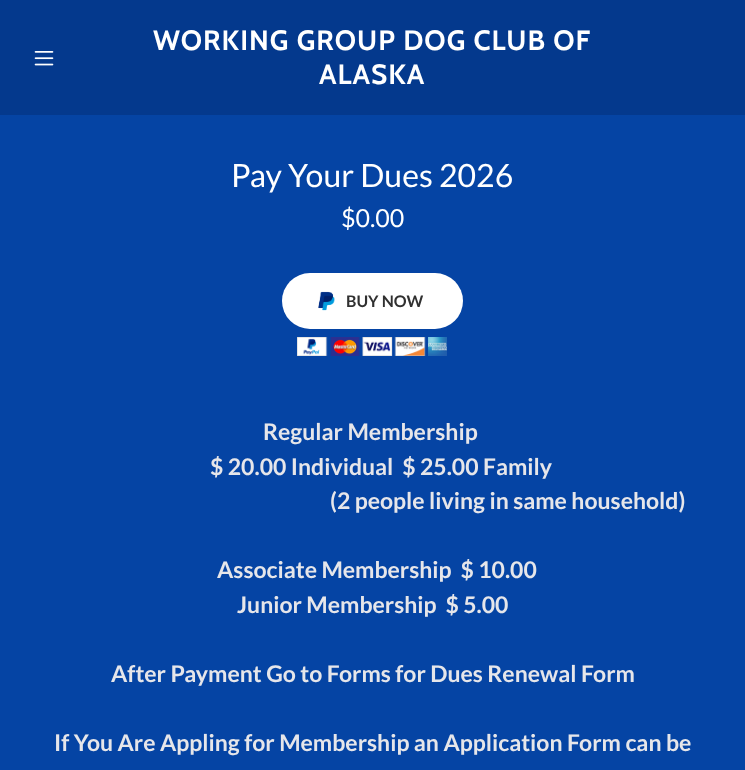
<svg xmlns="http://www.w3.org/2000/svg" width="745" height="770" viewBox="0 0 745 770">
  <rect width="100%" height="100%" fill="#04398d"/>
  <image x="34" y="51" width="20" height="15" href="img1.png"/>
  <text x="153" y="50" font-family="Cabin" font-size="28" font-weight="bold" letter-spacing="1" fill="#ffffff">WORKING GROUP DOG CLUB OF</text>
  <text x="319" y="84" font-family="Cabin" font-size="28" font-weight="bold" letter-spacing="1" fill="#ffffff">ALASKA</text>
  <rect x="0" y="115" width="745" height="655" fill="#0544a4"/>
  <text x="231" y="187" font-family="Lato" font-size="32" fill="#ffffff">Pay Your Dues 2026</text>
  <text x="341" y="227" font-family="Lato" font-size="25" fill="#ffffff">$0.00</text>
  <rect x="282" y="273" width="181" height="56" rx="28" fill="#ffffff"/>
  <image x="318" y="291" width="17" height="20" href="img2.png"/>
  <text x="346" y="307" font-family="Lato" font-size="16" font-weight="bold" fill="#303030">BUY NOW</text>
  <image x="297" y="337" width="150" height="19" href="img3.png"/>
  <text x="263" y="440" font-family="Lato" font-size="23" font-weight="bold" fill="#e6e6ea">Regular Membership</text>
  <text x="210" y="475" font-family="Lato" font-size="23" font-weight="bold" fill="#e6e6ea" xml:space="preserve">$ 20.00 Individual  $ 25.00 Family</text>
  <text x="330" y="509" font-family="Lato" font-size="23" font-weight="bold" fill="#e6e6ea">(2 people living in same household)</text>
  <text x="217" y="578" font-family="Lato" font-size="23" font-weight="bold" fill="#e6e6ea" xml:space="preserve">Associate Membership  $ 10.00</text>
  <text x="237" y="613" font-family="Lato" font-size="23" font-weight="bold" fill="#e6e6ea" xml:space="preserve">Junior Membership  $ 5.00</text>
  <text x="111" y="682" font-family="Lato" font-size="23" font-weight="bold" fill="#e6e6ea">After Payment Go to Forms for Dues Renewal Form</text>
  <text x="54" y="751" font-family="Lato" font-size="23" font-weight="bold" fill="#e6e6ea">If You Are Appling for Membership an Application Form can be</text>
</svg>
